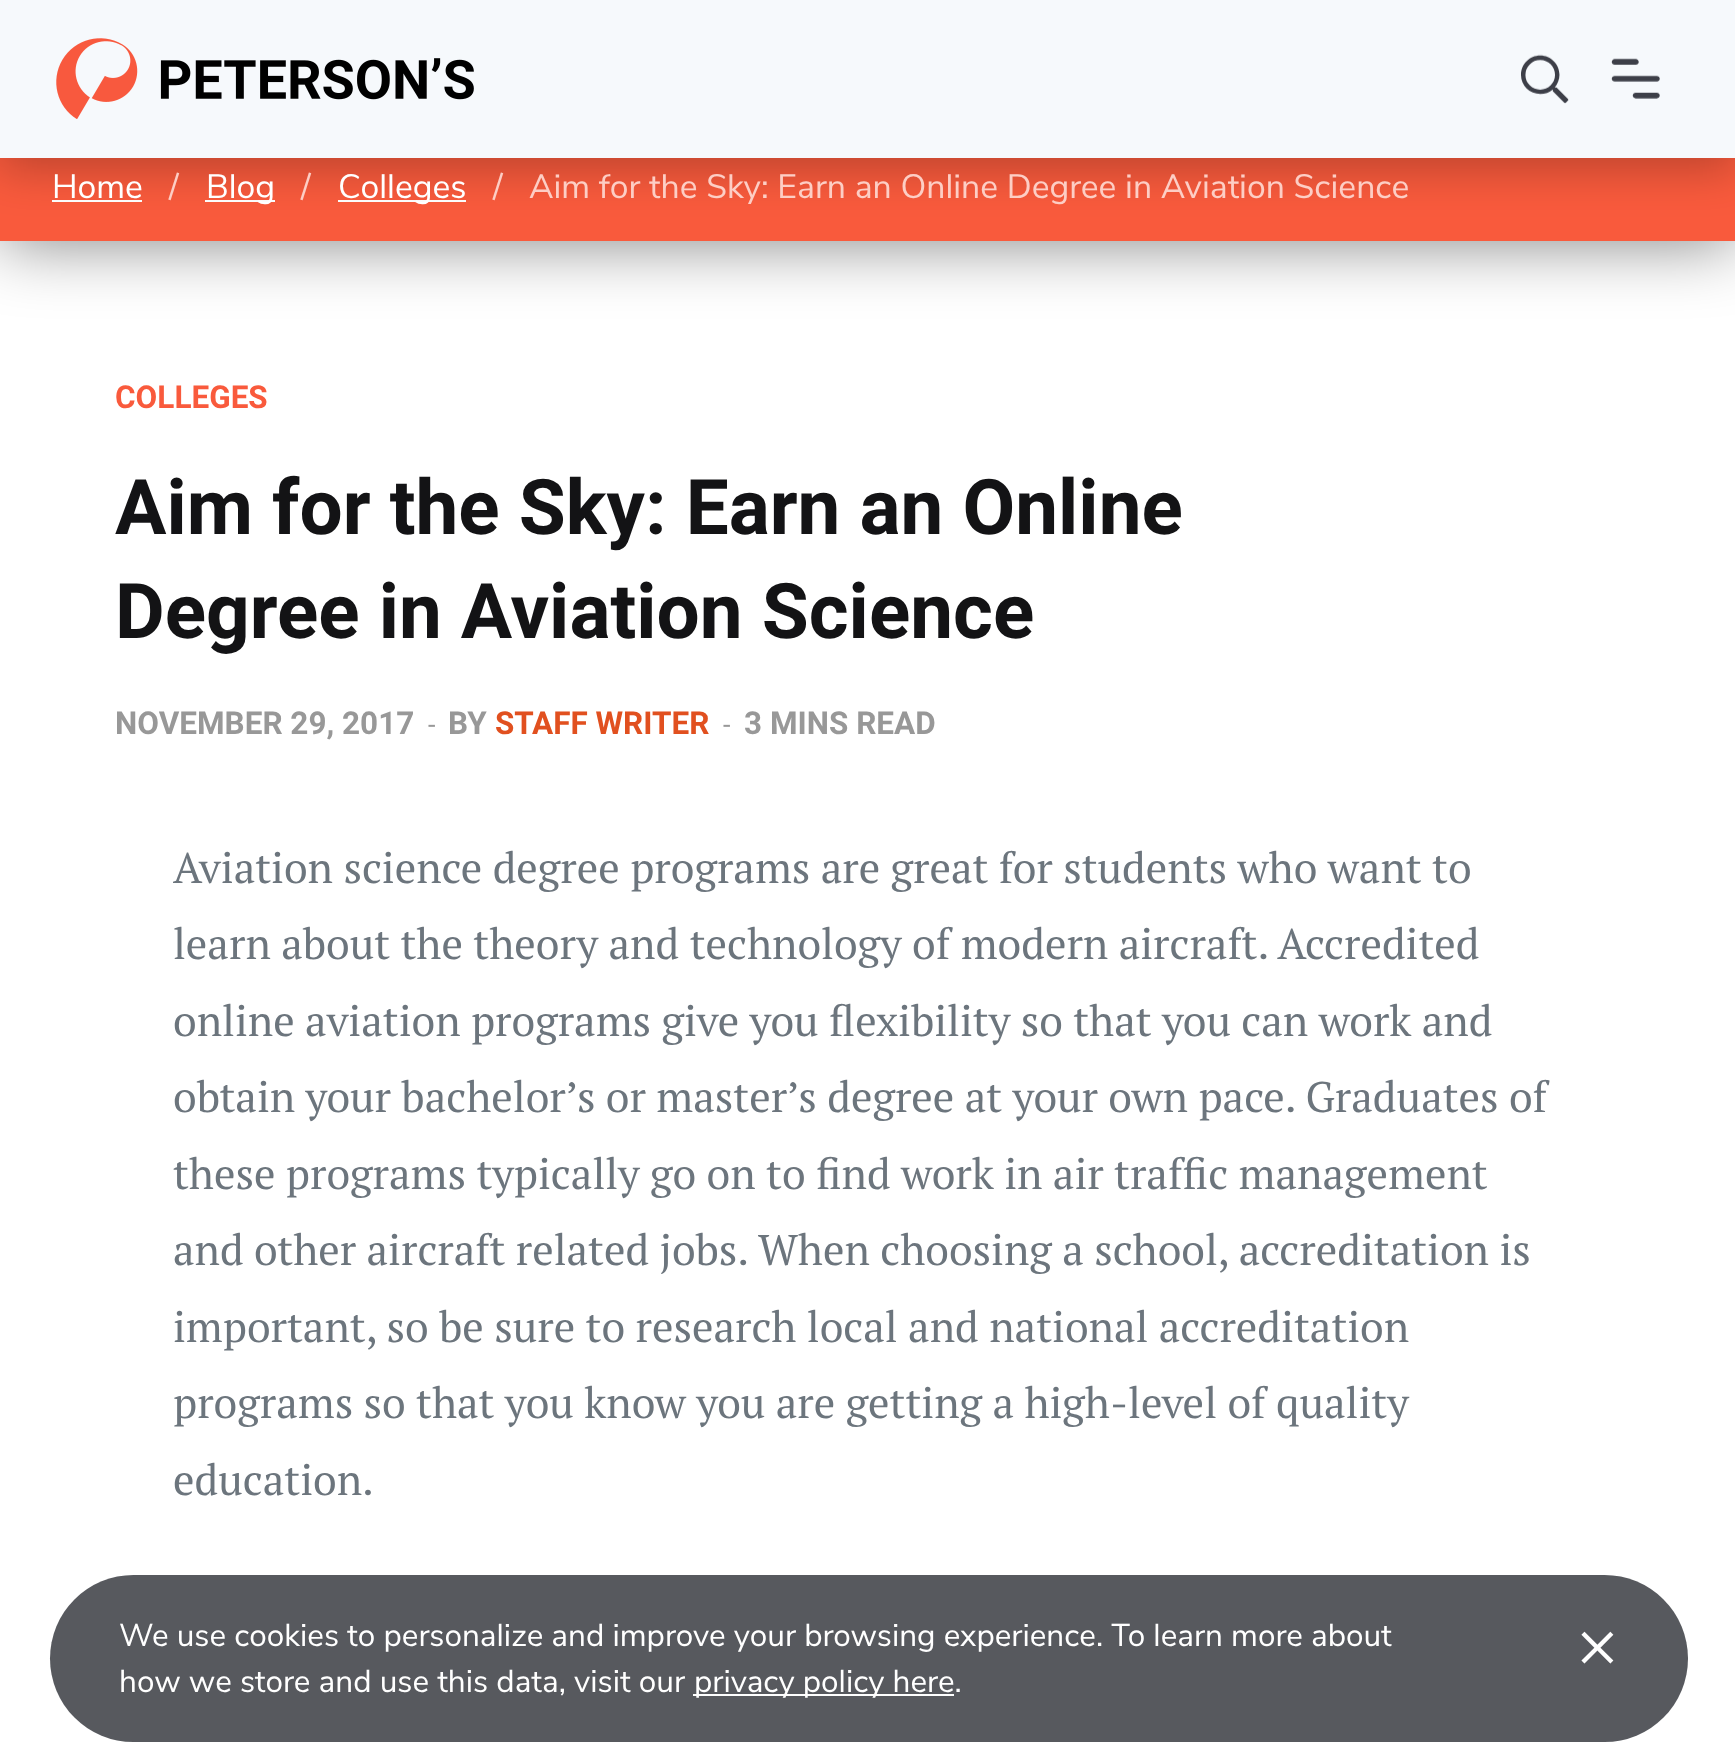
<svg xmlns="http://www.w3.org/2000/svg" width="1735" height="1762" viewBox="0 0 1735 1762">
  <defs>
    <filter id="blur1" x="-50%" y="-200%" width="200%" height="500%"><feGaussianBlur stdDeviation="34"/></filter>
    <filter id="blur2" x="-50%" y="-200%" width="200%" height="500%"><feGaussianBlur stdDeviation="22.5"/></filter>
  </defs>
  <rect width="100%" height="100%" fill="#ffffff"/>
  <rect x="0" y="135" width="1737" height="106" fill="#0f1319" fill-opacity="0.5" filter="url(#blur1)"/>
  <rect x="0" y="158" width="1735" height="83" fill="#f95a3c"/>
  <rect x="52" y="200" width="90" height="2" fill="#ffffff"/>
  <rect x="205" y="200" width="70" height="2" fill="#ffffff"/>
  <rect x="338" y="200" width="128" height="2" fill="#ffffff"/>
  <rect x="0" y="11" width="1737" height="158" fill="#000000" fill-opacity="0.25" filter="url(#blur2)"/>
  <rect x="0" y="0" width="1735" height="158" fill="#f6f9fc"/>
  <image x="56" y="38" width="418" height="81" href="img1.png"/>
  <image x="1521" y="54" width="48" height="50" href="img2.png"/>
  <image x="1611" y="58" width="49" height="41" href="img3.png"/>
  <text x="52" y="198" font-family="Nunito Sans" font-size="33.75" fill="#ffffff">Home</text>
  <text x="169" y="198" font-family="Nunito Sans" font-size="33.75" fill="#fdcec5">/</text>
  <text x="206" y="198" font-family="Nunito Sans" font-size="33.75" fill="#ffffff">Blog</text>
  <text x="301" y="198" font-family="Nunito Sans" font-size="33.75" fill="#fdcec5">/</text>
  <text x="338" y="198" font-family="Nunito Sans" font-size="33.75" fill="#ffffff">Colleges</text>
  <text x="493" y="198" font-family="Nunito Sans" font-size="33.75" fill="#fdcec5">/</text>
  <text x="529" y="198" font-family="Nunito Sans" font-size="33.75" fill="#fdcec5">Aim for the Sky: Earn an Online Degree in Aviation Science</text>
  <text x="115" y="408" font-family="Roboto" font-size="31.5" font-weight="bold" fill="#f95a3c">COLLEGES</text>
  <text x="115" y="534" font-family="Roboto" font-size="76.5" font-weight="bold" fill="#131315">Aim for the Sky: Earn an Online</text>
  <text x="115" y="638" font-family="Roboto" font-size="76.5" font-weight="bold" fill="#131315">Degree in Aviation Science</text>
  <text x="115" y="734" font-family="Roboto" font-size="31.5" font-weight="bold" fill="#989898">NOVEMBER 29, 2017</text>
  <text x="428" y="734" font-family="Roboto" font-size="27" fill="#989898">-</text>
  <text x="448" y="734" font-family="Roboto" font-size="31.5" font-weight="bold" fill="#989898">BY</text>
  <text x="495" y="734" font-family="Roboto" font-size="31.5" font-weight="bold" fill="#e1501f">STAFF WRITER</text>
  <text x="723" y="734" font-family="Roboto" font-size="27" fill="#989898">-</text>
  <text x="744" y="734" font-family="Roboto" font-size="31.5" font-weight="bold" fill="#989898">3 MINS READ</text>
  <text x="173" y="883" font-family="PT Serif" font-size="42.75" fill="#6c757d">Aviation science degree programs are great for students who want to</text>
  <text x="173" y="959" font-family="PT Serif" font-size="42.75" fill="#6c757d">learn about the theory and technology of modern aircraft. Accredited</text>
  <text x="173" y="1036" font-family="PT Serif" font-size="42.75" fill="#6c757d">online aviation programs give you flexibility so that you can work and</text>
  <text x="173" y="1112" font-family="PT Serif" font-size="42.75" fill="#6c757d">obtain your bachelor’s or master’s degree at your own pace. Graduates of</text>
  <text x="173" y="1189" font-family="PT Serif" font-size="42.75" fill="#6c757d">these programs typically go on to find work in air traffic management</text>
  <text x="173" y="1265" font-family="PT Serif" font-size="42.75" fill="#6c757d">and other aircraft related jobs. When choosing a school, accreditation is</text>
  <text x="173" y="1342" font-family="PT Serif" font-size="42.75" fill="#6c757d">important, so be sure to research local and national accreditation</text>
  <text x="173" y="1418" font-family="PT Serif" font-size="42.75" fill="#6c757d">programs so that you know you are getting a high-level of quality</text>
  <text x="173" y="1495" font-family="PT Serif" font-size="42.75" fill="#6c757d">education.</text>
  <rect x="50" y="1575" width="1638" height="167" rx="83.5" fill="#0f1319" fill-opacity="0.7"/>
  <text x="119" y="1646" font-family="Nunito Sans" font-size="31.5" fill="#ffffff">We use cookies to personalize and improve your browsing experience. To learn more about</text>
  <text x="119" y="1692" font-family="Nunito Sans" font-size="31.5" fill="#ffffff">how we store and use this data, visit our</text>
  <rect x="693" y="1694" width="261" height="2" fill="#ffffff"/>
  <text x="694" y="1692" font-family="Nunito Sans" font-size="31.5" fill="#ffffff">privacy policy here.</text>
  <text x="1577" y="1667" font-family="Nunito Sans" font-size="68" fill="#ffffff">×</text>
</svg>
